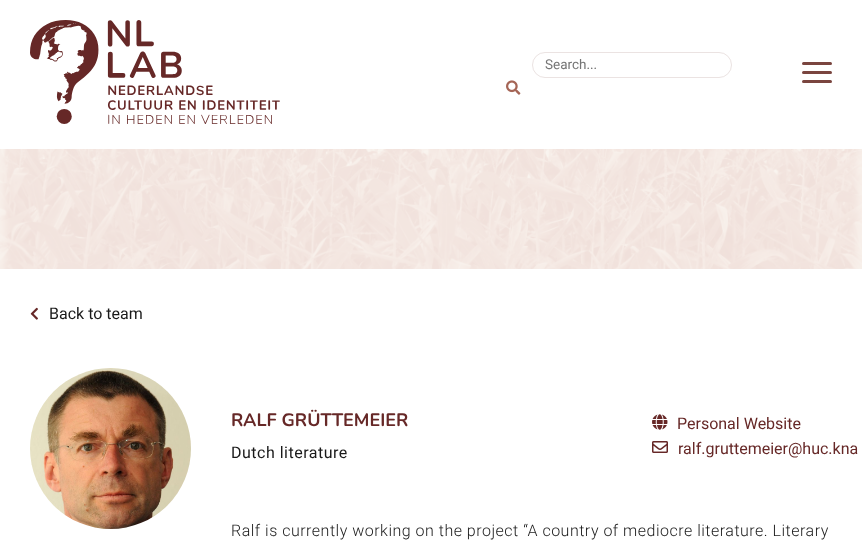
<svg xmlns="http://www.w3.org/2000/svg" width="862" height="540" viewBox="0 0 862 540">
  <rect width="100%" height="100%" fill="#ffffff"/>
  <image x="30" y="20" width="250" height="104" href="img1.png"/>
  <rect x="532.5" y="52.5" width="199" height="25" rx="12.5" fill="none" stroke="#ebe3e2"/>
  <text x="545" y="69" font-family="Roboto" font-size="13.5" fill="#757575">Search...</text>
  <image x="506" y="80" width="15" height="15" href="img2.png"/>
  <rect x="802" y="80" width="30" height="3" rx="1.5" fill="#7a453f"/>
  <rect x="802" y="62" width="30" height="3" rx="1.5" fill="#7a453f"/>
  <rect x="802" y="71" width="30" height="3" rx="1.5" fill="#7a453f"/>
  <image x="0" y="149" width="862" height="120" href="img3.png"/>
  <image x="30" y="307" width="8" height="13" href="img4.png"/>
  <text x="49" y="319" font-family="Roboto" font-size="16" fill="#1a1a1a">Back to team</text>
  <image x="30" y="368" width="161" height="161" href="img5.png"/>
  <text x="231" y="426" font-family="Nunito" font-size="18" font-weight="bold" fill="#662827">RALF GRÜTTEMEIER</text>
  <text x="231" y="458" font-family="Roboto" font-size="16" letter-spacing="0.5" fill="#1a1a1a">Dutch literature</text>
  <image x="652" y="414" width="16" height="16" href="img6.png"/>
  <text x="677" y="429" font-family="Roboto" font-size="16" fill="#662827">Personal Website</text>
  <image x="652" y="441" width="16" height="12" href="img7.png"/>
  <text x="678" y="454" font-family="Roboto" font-size="16" fill="#662827">ralf.gruttemeier@huc.kna</text>
  <text x="231" y="536" font-family="Roboto" font-size="16" font-weight="300" letter-spacing="0.5" fill="#1a1a1a">Ralf is currently working on the project “A country of mediocre literature. Literary</text>
</svg>
